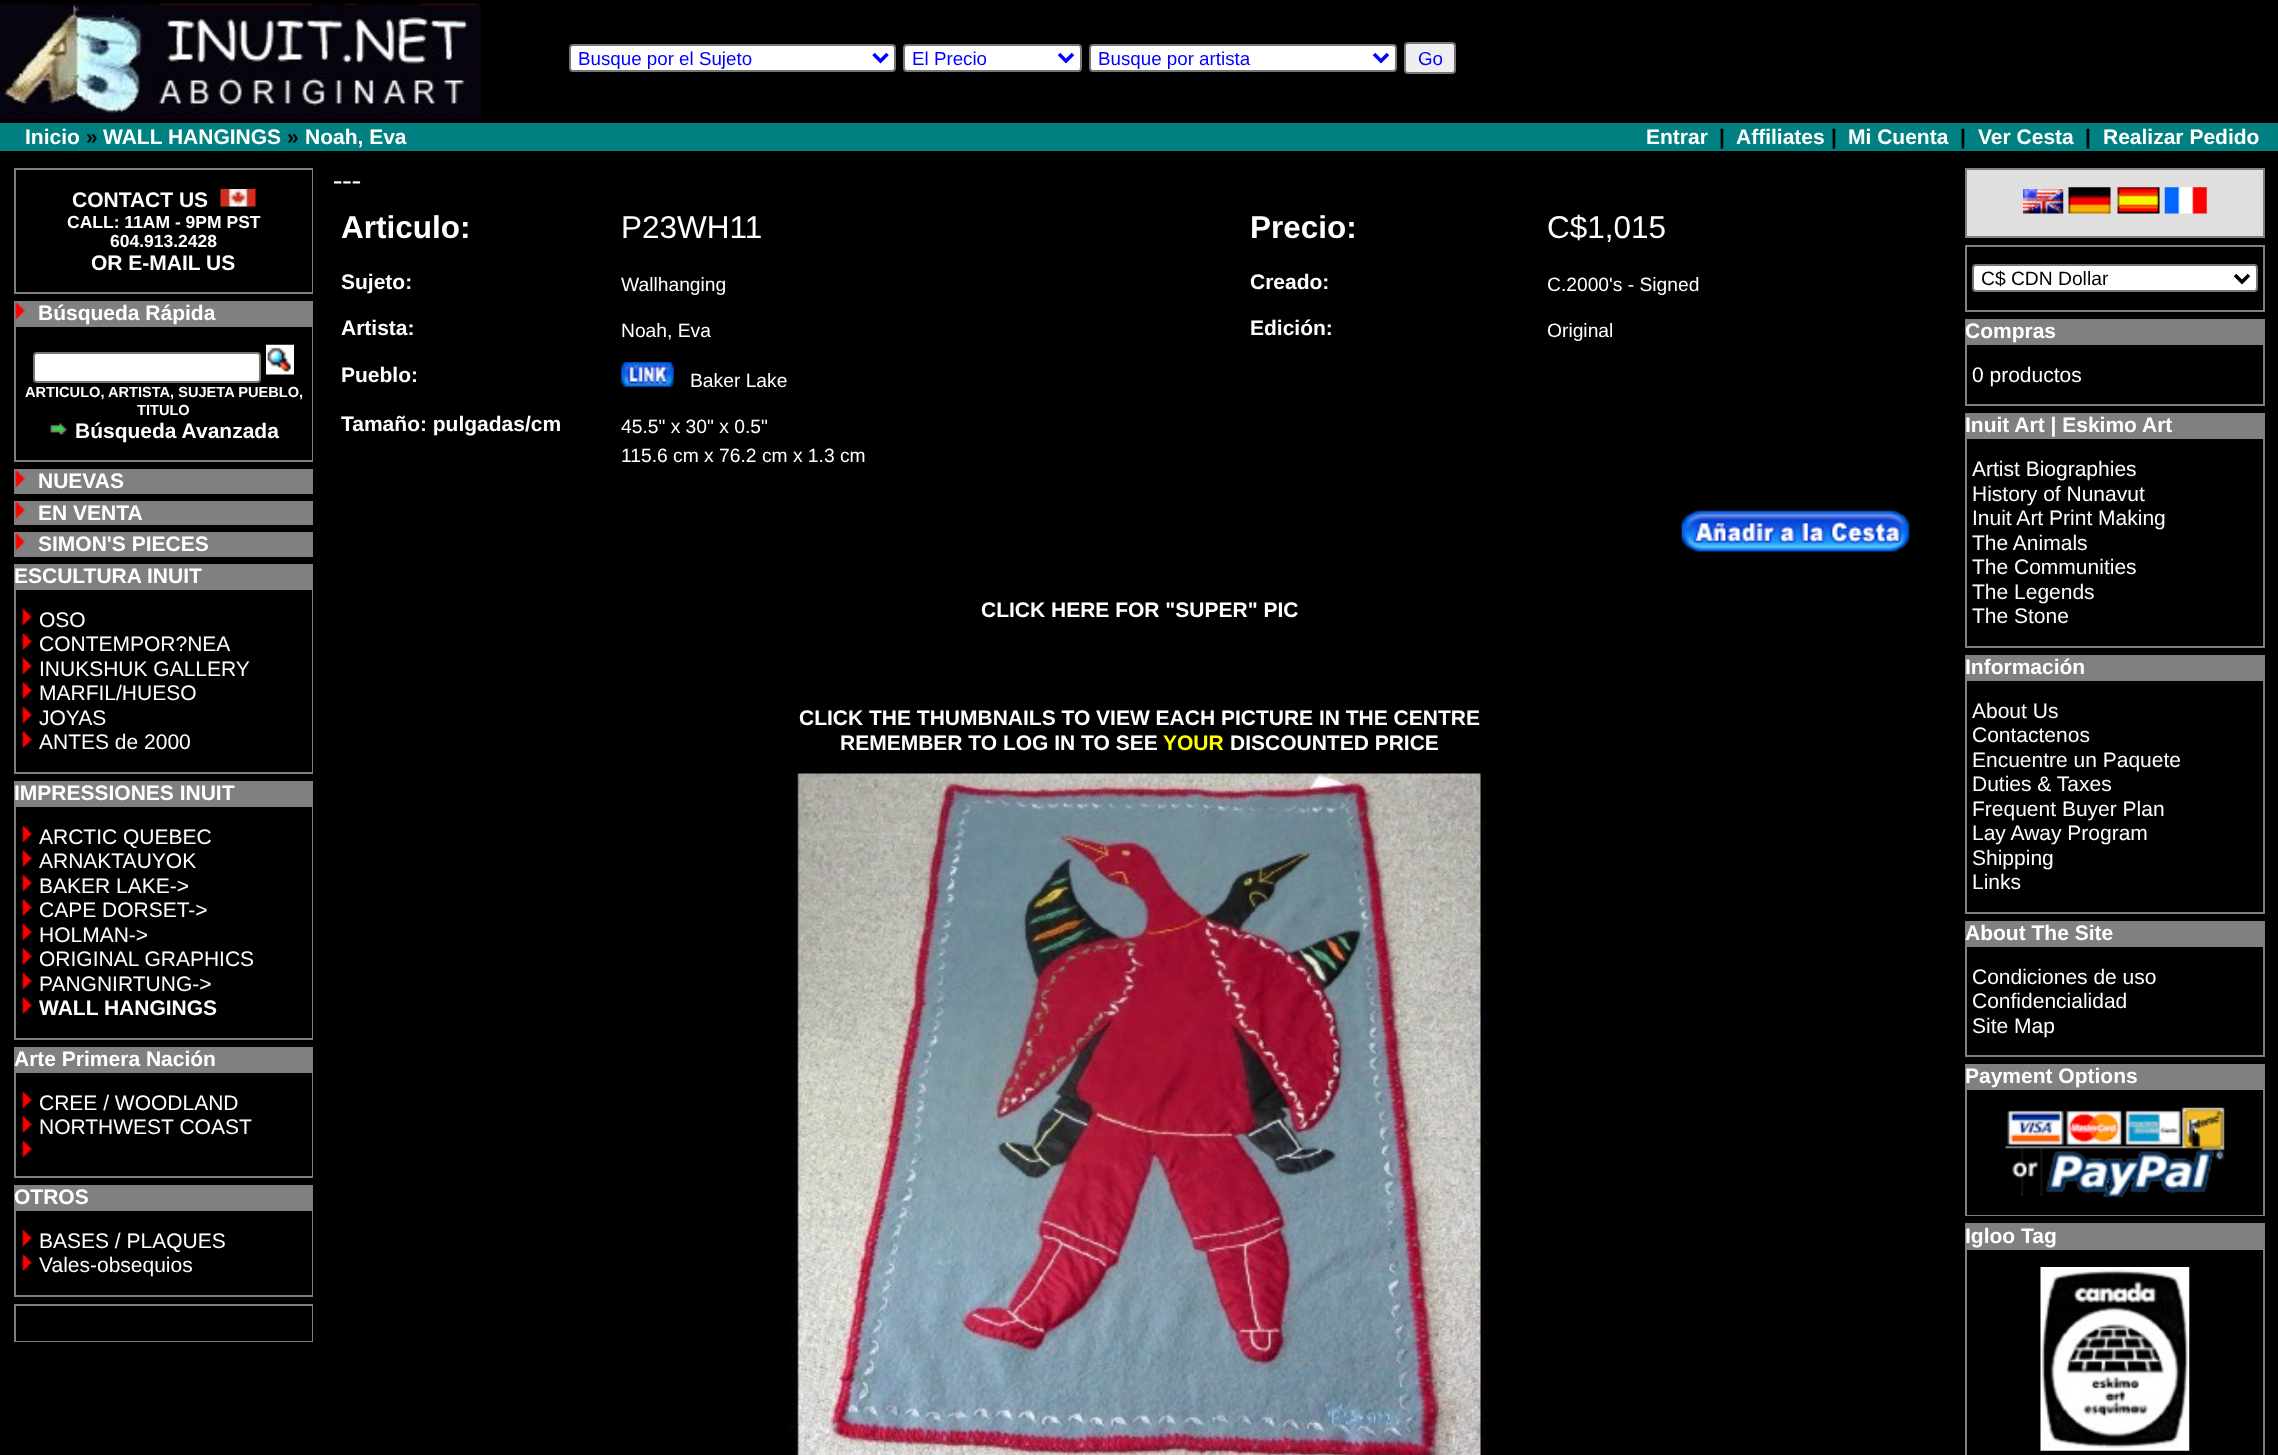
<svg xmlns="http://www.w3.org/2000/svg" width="2278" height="1455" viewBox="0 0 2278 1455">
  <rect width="100%" height="100%" fill="#000000"/>
  <image x="0" y="3" width="481" height="116" href="img1.png"/>
  <rect x="570" y="45" width="325" height="26" rx="3" fill="#ffffff" stroke="#767676" stroke-width="2"/>
  <path d="M873.5 54L880.5 61L887.5 54" fill="none" stroke="#0000ff" stroke-width="3.5"/>
  <text x="578" y="65" font-family="Liberation Sans" font-size="18.75" fill="#0000ff">Busque por el Sujeto</text>
  <rect x="904" y="45" width="177" height="26" rx="3" fill="#ffffff" stroke="#767676" stroke-width="2"/>
  <path d="M1059 54L1066 61L1073 54" fill="none" stroke="#0000ff" stroke-width="3.5"/>
  <text x="912" y="65" font-family="Liberation Sans" font-size="18.75" fill="#0000ff">El Precio</text>
  <rect x="1090" y="45" width="306" height="26" rx="3" fill="#ffffff" stroke="#767676" stroke-width="2"/>
  <path d="M1374 54L1381 61L1388 54" fill="none" stroke="#0000ff" stroke-width="3.5"/>
  <text x="1098" y="65" font-family="Liberation Sans" font-size="18.75" fill="#0000ff">Busque por artista</text>
  <rect x="1405" y="43" width="50" height="30" rx="3" fill="#efefef" stroke="#767676" stroke-width="2"/>
  <text x="1418" y="65" font-family="Liberation Sans" font-size="18.75" fill="#0000ff">Go</text>
  <rect x="0" y="123" width="2278" height="28" fill="#008080"/>
  <text x="25" y="144" font-family="Liberation Sans" font-size="21" font-weight="bold" fill="#ffffff">Inicio</text>
  <text x="86" y="144" font-family="Liberation Sans" font-size="21" font-weight="bold" fill="#000000">»</text>
  <text x="103" y="144" font-family="Liberation Sans" font-size="21" font-weight="bold" fill="#ffffff">WALL HANGINGS</text>
  <text x="287" y="144" font-family="Liberation Sans" font-size="21" font-weight="bold" fill="#000000">»</text>
  <text x="305" y="144" font-family="Liberation Sans" font-size="21" font-weight="bold" fill="#ffffff">Noah, Eva</text>
  <text x="1646" y="144" font-family="Liberation Sans" font-size="21" font-weight="bold" fill="#ffffff">Entrar</text>
  <text x="1719" y="144" font-family="Liberation Sans" font-size="21" font-weight="bold" fill="#000000">|</text>
  <text x="1736" y="144" font-family="Liberation Sans" font-size="21" font-weight="bold" fill="#ffffff">Affiliates</text>
  <text x="1831" y="144" font-family="Liberation Sans" font-size="21" font-weight="bold" fill="#000000">|</text>
  <text x="1848" y="144" font-family="Liberation Sans" font-size="21" font-weight="bold" fill="#ffffff">Mi Cuenta</text>
  <text x="1960" y="144" font-family="Liberation Sans" font-size="21" font-weight="bold" fill="#000000">|</text>
  <text x="1978" y="144" font-family="Liberation Sans" font-size="21" font-weight="bold" fill="#ffffff">Ver Cesta</text>
  <text x="2085" y="144" font-family="Liberation Sans" font-size="21" font-weight="bold" fill="#000000">|</text>
  <text x="2103" y="144" font-family="Liberation Sans" font-size="21" font-weight="bold" fill="#ffffff">Realizar Pedido</text>
  <rect x="14" y="168" width="299" height="126" fill="#808080"/>
  <rect x="16" y="170" width="296" height="122" fill="#000000"/>
  <text x="72" y="207" font-family="Liberation Sans" font-size="21" font-weight="bold" fill="#ffffff">CONTACT US</text>
  <image x="220" y="189" width="36" height="18" href="img2.png"/>
  <text x="67" y="228" font-family="Liberation Sans" font-size="17.5" font-weight="bold" fill="#ffffff">CALL: 11AM - 9PM PST</text>
  <text x="110" y="247" font-family="Liberation Sans" font-size="17.5" font-weight="bold" fill="#ffffff">604.913.2428</text>
  <text x="91" y="270" font-family="Liberation Sans" font-size="21" font-weight="bold" fill="#ffffff">OR E-MAIL US</text>
  <rect x="14" y="301" width="299" height="161" fill="#808080"/>
  <image x="15" y="302" width="10" height="17" href="img3.png"/>
  <text x="38" y="320" font-family="Liberation Sans" font-size="21" font-weight="bold" fill="#ffffff">Búsqueda Rápida</text>
  <rect x="16" y="327" width="296" height="133" fill="#000000"/>
  <rect x="34" y="353" width="226" height="29" rx="3" fill="#ffffff" stroke="#767676" stroke-width="2"/>
  <image x="266" y="344" width="28" height="31" href="img4.png"/>
  <text x="25" y="397" font-family="Liberation Sans" font-size="14.6" font-weight="bold" fill="#ffffff">ARTICULO, ARTISTA, SUJETA PUEBLO,</text>
  <text x="137" y="415" font-family="Liberation Sans" font-size="14.6" font-weight="bold" fill="#ffffff">TITULO</text>
  <image x="50" y="423" width="17" height="12" href="img5.png"/>
  <text x="75" y="438" font-family="Liberation Sans" font-size="21" font-weight="bold" fill="#ffffff">Búsqueda Avanzada</text>
  <rect x="14" y="469" width="299" height="25" fill="#808080"/>
  <image x="15" y="470" width="10" height="17" href="img3.png"/>
  <text x="38" y="488" font-family="Liberation Sans" font-size="21" font-weight="bold" fill="#ffffff">NUEVAS</text>
  <rect x="14" y="501" width="299" height="24" fill="#808080"/>
  <image x="15" y="501" width="10" height="18" href="img6.png"/>
  <text x="38" y="520" font-family="Liberation Sans" font-size="21" font-weight="bold" fill="#ffffff">EN VENTA</text>
  <rect x="14" y="532" width="299" height="25" fill="#808080"/>
  <image x="15" y="533" width="10" height="17" href="img3.png"/>
  <text x="38" y="551" font-family="Liberation Sans" font-size="21" font-weight="bold" fill="#ffffff">SIMON'S PIECES</text>
  <rect x="14" y="564" width="299" height="210" fill="#808080"/>
  <text x="14" y="583" font-family="Liberation Sans" font-size="21" font-weight="bold" fill="#ffffff">ESCULTURA INUIT</text>
  <rect x="16" y="590" width="296" height="182" fill="#000000"/>
  <image x="22" y="608" width="10" height="18" href="img7.png"/>
  <text x="39" y="627" font-family="Liberation Sans" font-size="21" fill="#ffffff">OSO</text>
  <image x="22" y="633" width="10" height="17" href="img8.png"/>
  <text x="39" y="651" font-family="Liberation Sans" font-size="21" fill="#ffffff">CONTEMPOR?NEA</text>
  <image x="22" y="657" width="10" height="18" href="img7.png"/>
  <text x="39" y="676" font-family="Liberation Sans" font-size="21" fill="#ffffff">INUKSHUK GALLERY</text>
  <image x="22" y="682" width="10" height="17" href="img8.png"/>
  <text x="39" y="700" font-family="Liberation Sans" font-size="21" fill="#ffffff">MARFIL/HUESO</text>
  <image x="22" y="706" width="10" height="18" href="img7.png"/>
  <text x="39" y="725" font-family="Liberation Sans" font-size="21" fill="#ffffff">JOYAS</text>
  <image x="22" y="731" width="10" height="17" href="img8.png"/>
  <text x="39" y="749" font-family="Liberation Sans" font-size="21" fill="#ffffff">ANTES de 2000</text>
  <rect x="14" y="781" width="299" height="259" fill="#808080"/>
  <text x="14" y="800" font-family="Liberation Sans" font-size="21" font-weight="bold" fill="#ffffff">IMPRESSIONES INUIT</text>
  <rect x="16" y="807" width="296" height="231" fill="#000000"/>
  <image x="22" y="825" width="10" height="18" href="img7.png"/>
  <text x="39" y="844" font-family="Liberation Sans" font-size="21" fill="#ffffff">ARCTIC QUEBEC</text>
  <image x="22" y="850" width="10" height="17" href="img8.png"/>
  <text x="39" y="868" font-family="Liberation Sans" font-size="21" fill="#ffffff">ARNAKTAUYOK</text>
  <image x="22" y="874" width="10" height="18" href="img7.png"/>
  <text x="39" y="893" font-family="Liberation Sans" font-size="21" fill="#ffffff">BAKER LAKE-&gt;</text>
  <image x="22" y="899" width="10" height="17" href="img8.png"/>
  <text x="39" y="917" font-family="Liberation Sans" font-size="21" fill="#ffffff">CAPE DORSET-&gt;</text>
  <image x="22" y="923" width="10" height="18" href="img7.png"/>
  <text x="39" y="942" font-family="Liberation Sans" font-size="21" fill="#ffffff">HOLMAN-&gt;</text>
  <image x="22" y="948" width="10" height="17" href="img8.png"/>
  <text x="39" y="966" font-family="Liberation Sans" font-size="21" fill="#ffffff">ORIGINAL GRAPHICS</text>
  <image x="22" y="972" width="10" height="18" href="img7.png"/>
  <text x="39" y="991" font-family="Liberation Sans" font-size="21" fill="#ffffff">PANGNIRTUNG-&gt;</text>
  <image x="22" y="997" width="10" height="17" href="img8.png"/>
  <text x="39" y="1015" font-family="Liberation Sans" font-size="21" font-weight="bold" fill="#ffffff">WALL HANGINGS</text>
  <rect x="14" y="1047" width="299" height="131" fill="#808080"/>
  <text x="14" y="1066" font-family="Liberation Sans" font-size="21" font-weight="bold" fill="#ffffff">Arte Primera Nación</text>
  <rect x="16" y="1073" width="296" height="103" fill="#000000"/>
  <image x="22" y="1091" width="10" height="18" href="img7.png"/>
  <text x="39" y="1110" font-family="Liberation Sans" font-size="21" fill="#ffffff">CREE / WOODLAND</text>
  <image x="22" y="1116" width="10" height="17" href="img8.png"/>
  <text x="39" y="1134" font-family="Liberation Sans" font-size="21" fill="#ffffff">NORTHWEST COAST</text>
  <image x="22" y="1140" width="10" height="18" href="img7.png"/>
  <rect x="14" y="1185" width="299" height="112" fill="#808080"/>
  <text x="14" y="1204" font-family="Liberation Sans" font-size="21" font-weight="bold" fill="#ffffff">OTROS</text>
  <rect x="16" y="1211" width="296" height="84" fill="#000000"/>
  <image x="22" y="1229" width="10" height="18" href="img9.png"/>
  <text x="39" y="1248" font-family="Liberation Sans" font-size="21" fill="#ffffff">BASES / PLAQUES</text>
  <image x="22" y="1254" width="10" height="17" href="img10.png"/>
  <text x="39" y="1272" font-family="Liberation Sans" font-size="21" fill="#ffffff">Vales-obsequios</text>
  <rect x="14" y="1304" width="299" height="38" fill="#808080"/>
  <rect x="16" y="1306" width="296" height="35" fill="#000000"/>
  <text x="333" y="189" font-family="Liberation Serif" font-size="28" fill="#ffffff">---</text>
  <text x="341" y="238" font-family="Liberation Sans" font-size="31.5" font-weight="bold" fill="#ffffff">Articulo:</text>
  <text x="621" y="238" font-family="Liberation Sans" font-size="31.5" fill="#ffffff">P23WH11</text>
  <text x="1250" y="238" font-family="Liberation Sans" font-size="31.5" font-weight="bold" fill="#ffffff">Precio:</text>
  <text x="1547" y="238" font-family="Liberation Sans" font-size="31.5" fill="#ffffff">C$1,015</text>
  <text x="341" y="289" font-family="Liberation Sans" font-size="21" font-weight="bold" fill="#ffffff">Sujeto:</text>
  <text x="621" y="291" font-family="Liberation Sans" font-size="19.25" fill="#ffffff">Wallhanging</text>
  <text x="1250" y="289" font-family="Liberation Sans" font-size="21" font-weight="bold" fill="#ffffff">Creado:</text>
  <text x="1547" y="291" font-family="Liberation Sans" font-size="19.25" fill="#ffffff">C.2000's - Signed</text>
  <text x="341" y="335" font-family="Liberation Sans" font-size="21" font-weight="bold" fill="#ffffff">Artista:</text>
  <text x="621" y="337" font-family="Liberation Sans" font-size="19.25" fill="#ffffff">Noah, Eva</text>
  <text x="1250" y="335" font-family="Liberation Sans" font-size="21" font-weight="bold" fill="#ffffff">Edición:</text>
  <text x="1547" y="337" font-family="Liberation Sans" font-size="19.25" fill="#ffffff">Original</text>
  <text x="341" y="382" font-family="Liberation Sans" font-size="21" font-weight="bold" fill="#ffffff">Pueblo:</text>
  <image x="621" y="362" width="53" height="25" href="img11.png"/>
  <text x="690" y="387" font-family="Liberation Sans" font-size="19.25" fill="#ffffff">Baker Lake</text>
  <text x="341" y="431" font-family="Liberation Sans" font-size="21" font-weight="bold" fill="#ffffff">Tamaño: pulgadas/cm</text>
  <text x="621" y="433" font-family="Liberation Sans" font-size="19.25" fill="#ffffff">45.5" x 30" x 0.5"</text>
  <text x="621" y="462" font-family="Liberation Sans" font-size="19.25" fill="#ffffff">115.6 cm x 76.2 cm x 1.3 cm</text>
  <image x="1681" y="510" width="229" height="42" href="img12.png"/>
  <text x="981" y="617" font-family="Liberation Sans" font-size="21" font-weight="bold" fill="#ffffff">CLICK HERE FOR "SUPER" PIC</text>
  <text x="799" y="725" font-family="Liberation Sans" font-size="21" font-weight="bold" fill="#ffffff">CLICK THE THUMBNAILS TO VIEW EACH PICTURE IN THE CENTRE</text>
  <text x="840" y="750" font-family="Liberation Sans" font-size="21" font-weight="bold" fill="#ffffff">REMEMBER TO LOG IN TO SEE</text>
  <text x="1163" y="750" font-family="Liberation Sans" font-size="21" font-weight="bold" fill="#ffff00">YOUR</text>
  <text x="1230" y="750" font-family="Liberation Sans" font-size="21" font-weight="bold" fill="#ffffff">DISCOUNTED PRICE</text>
  <image x="789" y="773" width="700" height="682" href="img13.png"/>
  <rect x="1965" y="168" width="300" height="70" fill="#808080"/>
  <rect x="1967" y="170" width="296" height="66" fill="#dfdfdf"/>
  <image x="2023" y="189" width="41" height="25" href="img14.png"/>
  <image x="2068" y="187" width="43" height="27" href="img15.png"/>
  <image x="2117" y="187" width="43" height="27" href="img16.png"/>
  <image x="2164" y="187" width="43" height="27" href="img17.png"/>
  <rect x="1965" y="245" width="300" height="67" fill="#808080"/>
  <rect x="1967" y="247" width="296" height="63" fill="#000000"/>
  <rect x="1973" y="265" width="284" height="26" rx="3" fill="#ffffff" stroke="#767676" stroke-width="2"/>
  <path d="M2235 275L2242 282L2249 275" fill="none" stroke="#000000" stroke-width="3.5"/>
  <text x="1981" y="285" font-family="Liberation Sans" font-size="19.25" fill="#000000">C$ CDN Dollar</text>
  <rect x="1965" y="319" width="300" height="87" fill="#808080"/>
  <text x="1965" y="338" font-family="Liberation Sans" font-size="21" font-weight="bold" fill="#ffffff">Compras</text>
  <rect x="1967" y="345" width="296" height="59" fill="#000000"/>
  <text x="1972" y="382" font-family="Liberation Sans" font-size="21" fill="#ffffff">0 productos</text>
  <rect x="1965" y="413" width="300" height="235" fill="#808080"/>
  <text x="1965" y="432" font-family="Liberation Sans" font-size="21" font-weight="bold" fill="#ffffff">Inuit Art | Eskimo Art</text>
  <rect x="1967" y="439" width="296" height="207" fill="#000000"/>
  <text x="1972" y="476" font-family="Liberation Sans" font-size="21" fill="#ffffff">Artist Biographies</text>
  <text x="1972" y="501" font-family="Liberation Sans" font-size="21" fill="#ffffff">History of Nunavut</text>
  <text x="1972" y="525" font-family="Liberation Sans" font-size="21" fill="#ffffff">Inuit Art Print Making</text>
  <text x="1972" y="550" font-family="Liberation Sans" font-size="21" fill="#ffffff">The Animals</text>
  <text x="1972" y="574" font-family="Liberation Sans" font-size="21" fill="#ffffff">The Communities</text>
  <text x="1972" y="599" font-family="Liberation Sans" font-size="21" fill="#ffffff">The Legends</text>
  <text x="1972" y="623" font-family="Liberation Sans" font-size="21" fill="#ffffff">The Stone</text>
  <rect x="1965" y="655" width="300" height="259" fill="#808080"/>
  <text x="1965" y="674" font-family="Liberation Sans" font-size="21" font-weight="bold" fill="#ffffff">Información</text>
  <rect x="1967" y="681" width="296" height="231" fill="#000000"/>
  <text x="1972" y="718" font-family="Liberation Sans" font-size="21" fill="#ffffff">About Us</text>
  <text x="1972" y="742" font-family="Liberation Sans" font-size="21" fill="#ffffff">Contactenos</text>
  <text x="1972" y="767" font-family="Liberation Sans" font-size="21" fill="#ffffff">Encuentre un Paquete</text>
  <text x="1972" y="791" font-family="Liberation Sans" font-size="21" fill="#ffffff">Duties &amp; Taxes</text>
  <text x="1972" y="816" font-family="Liberation Sans" font-size="21" fill="#ffffff">Frequent Buyer Plan</text>
  <text x="1972" y="840" font-family="Liberation Sans" font-size="21" fill="#ffffff">Lay Away Program</text>
  <text x="1972" y="865" font-family="Liberation Sans" font-size="21" fill="#ffffff">Shipping</text>
  <text x="1972" y="889" font-family="Liberation Sans" font-size="21" fill="#ffffff">Links</text>
  <rect x="1965" y="921" width="300" height="136" fill="#808080"/>
  <text x="1965" y="940" font-family="Liberation Sans" font-size="21" font-weight="bold" fill="#ffffff">About The Site</text>
  <rect x="1967" y="947" width="296" height="108" fill="#000000"/>
  <text x="1972" y="984" font-family="Liberation Sans" font-size="21" fill="#ffffff">Condiciones de uso</text>
  <text x="1972" y="1008" font-family="Liberation Sans" font-size="21" fill="#ffffff">Confidencialidad</text>
  <text x="1972" y="1033" font-family="Liberation Sans" font-size="21" fill="#ffffff">Site Map</text>
  <rect x="1965" y="1064" width="300" height="152" fill="#808080"/>
  <text x="1965" y="1083" font-family="Liberation Sans" font-size="21" font-weight="bold" fill="#ffffff">Payment Options</text>
  <rect x="1967" y="1090" width="296" height="125" fill="#000000"/>
  <image x="2005" y="1107" width="220" height="90" href="img18.png"/>
  <rect x="1965" y="1223" width="300" height="232" fill="#808080"/>
  <text x="1965" y="1243" font-family="Liberation Sans" font-size="21" font-weight="bold" fill="#ffffff">Igloo Tag</text>
  <rect x="1967" y="1250" width="296" height="205" fill="#000000"/>
  <image x="2040" y="1267" width="150" height="184" href="img19.png"/>
</svg>
